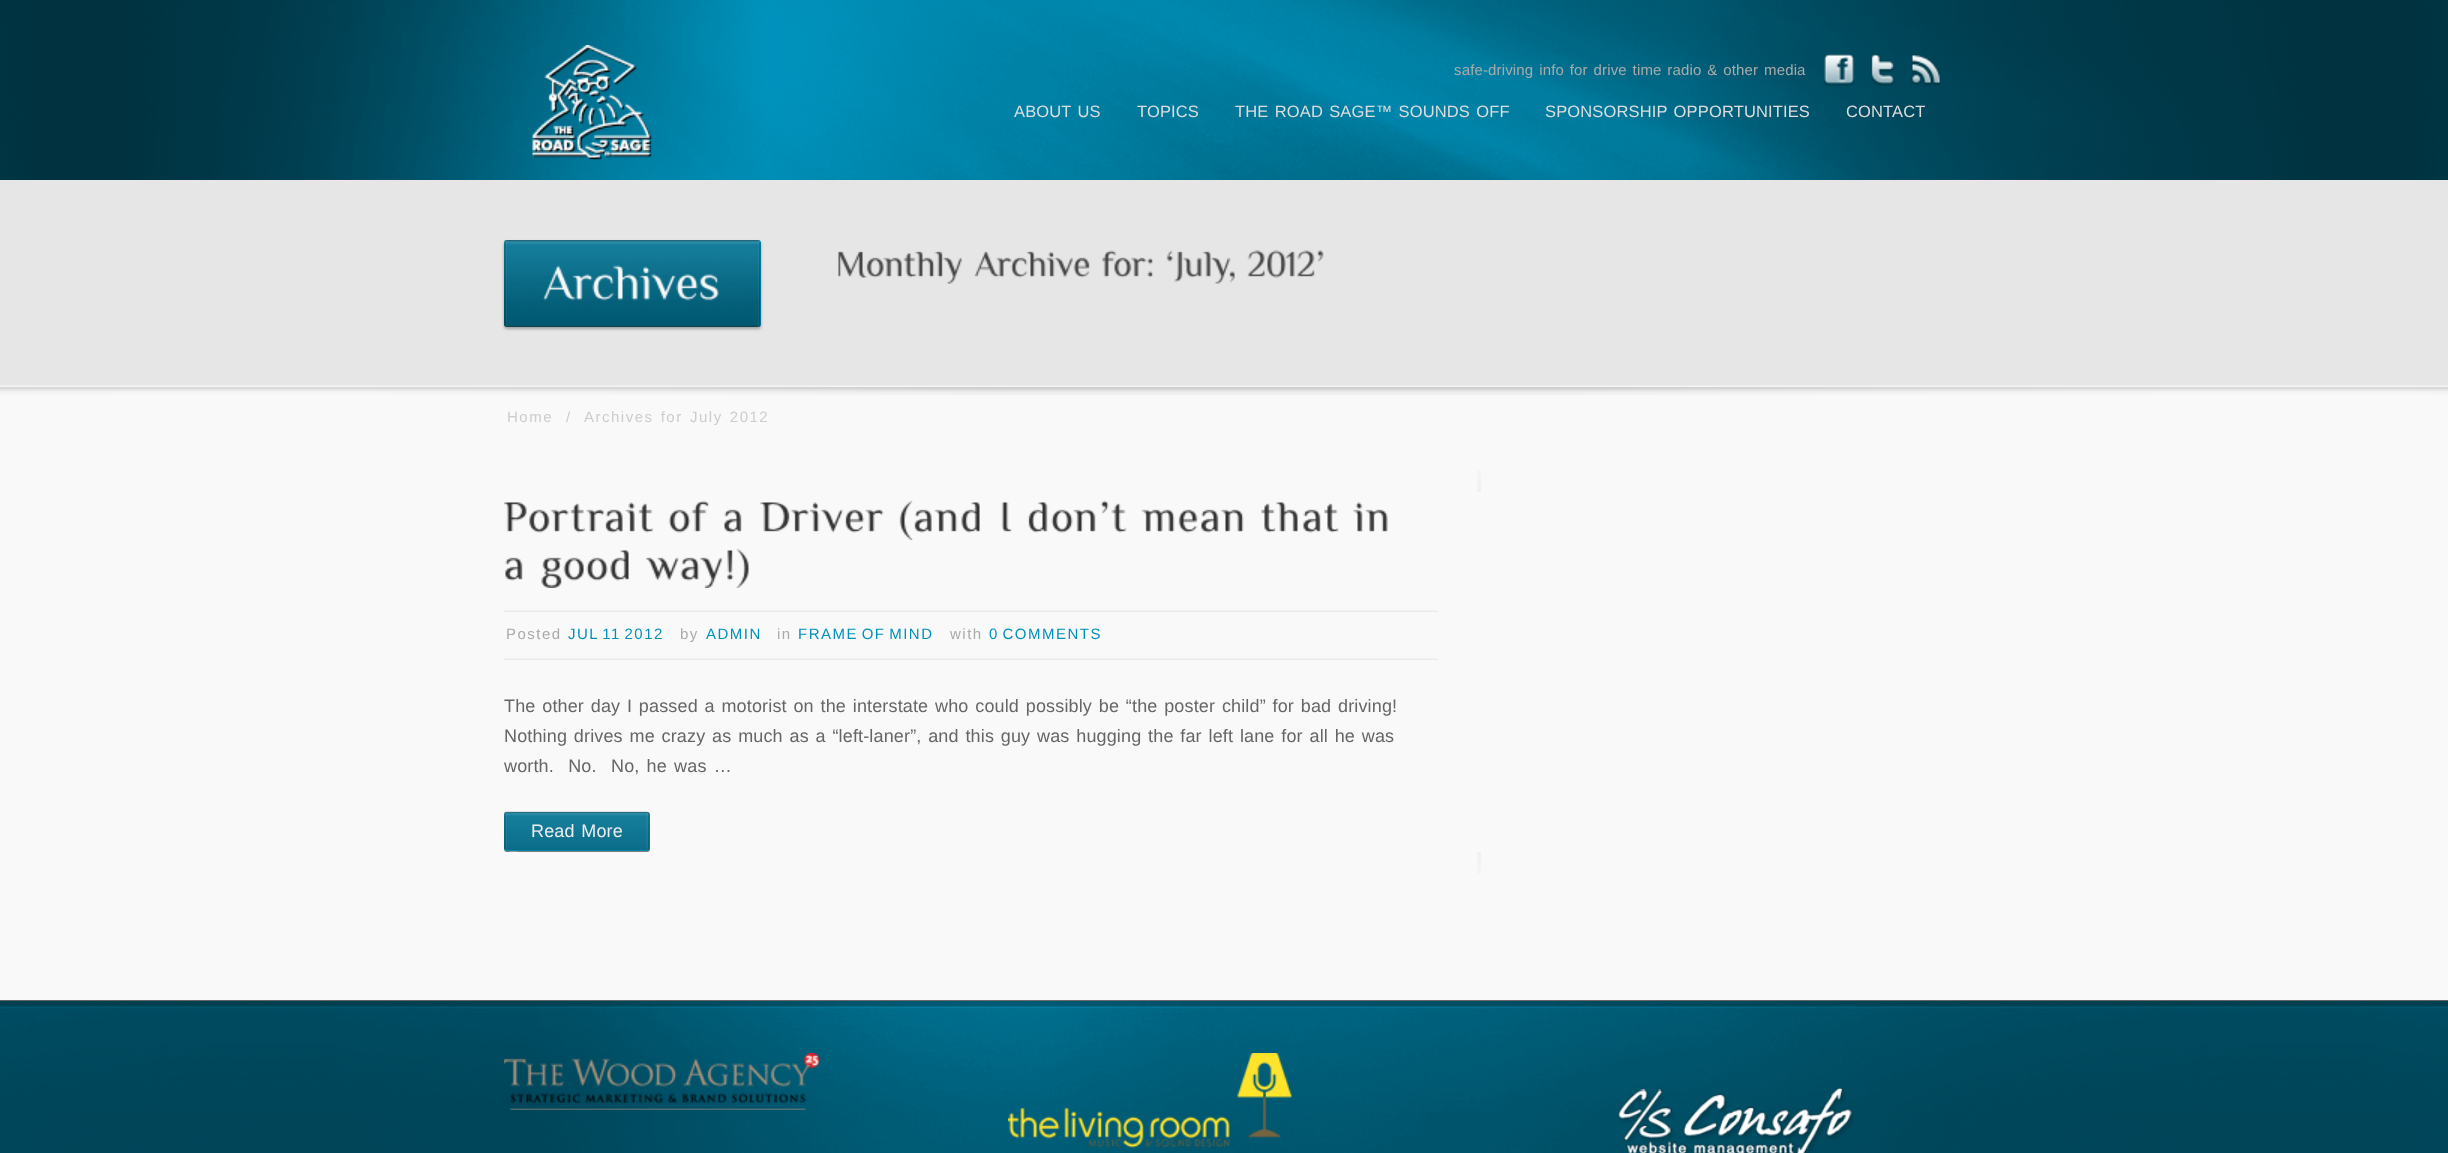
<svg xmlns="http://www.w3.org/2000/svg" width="2448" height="1153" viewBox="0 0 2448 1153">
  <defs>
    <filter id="blur1" x="-50%" y="-200%" width="200%" height="500%"><feGaussianBlur stdDeviation="1.5"/></filter>
  </defs>
  <rect width="100%" height="100%" fill="#00c7ff"/>
  <image x="0" y="0" width="2448" height="180" href="img1.png"/>
  <image x="532" y="45" width="120" height="115" href="img2.png"/>
  <text x="1454" y="75" word-spacing="1.5" font-family="Liberation Sans" font-size="15" letter-spacing="0.15" fill="#aaaaaa">safe-driving info for drive time radio &amp; other media</text>
  <image x="1823" y="53" width="32" height="33" href="img3.png"/>
  <image x="1870" y="53" width="25" height="33" href="img4.png"/>
  <image x="1911" y="54" width="30" height="32" href="img5.png"/>
  <text x="1014" y="117" word-spacing="1.5" font-family="Liberation Sans" font-size="16.5" letter-spacing="0.15" fill="#dddddd">ABOUT US</text>
  <text x="1137" y="117" font-family="Liberation Sans" font-size="16.5" letter-spacing="0.15" fill="#dddddd">TOPICS</text>
  <text x="1235" y="117" word-spacing="1.5" font-family="Liberation Sans" font-size="16.5" letter-spacing="0.15" fill="#dddddd">THE ROAD SAGE™ SOUNDS OFF</text>
  <text x="1545" y="117" word-spacing="1.5" font-family="Liberation Sans" font-size="16.5" letter-spacing="0.15" fill="#dddddd">SPONSORSHIP OPPORTUNITIES</text>
  <text x="1846" y="117" font-family="Liberation Sans" font-size="16.5" letter-spacing="0.15" fill="#dddddd">CONTACT</text>
  <rect x="0" y="180" width="2448" height="205" fill="#e6e6e6"/>
  <image x="0" y="385" width="2448" height="2" href="img6.png"/>
  <rect x="504" y="242" width="257" height="87" rx="3" fill="#000000" fill-opacity="0.3" filter="url(#blur1)"/>
  <rect x="504" y="240" width="257" height="87" rx="3" fill="#0091ba"/>
  <image x="504" y="240" width="257" height="87" href="img7.png"/>
  <path d="M756 327H758C758 327 759 326 759 324V243C759 241 758 240 758 240H756C757 240 758 241 758 243V324C758 326 757 327 756 327Z" fill="#ffffff" fill-opacity="0.05"/>
  <path d="M507 240C506 240 506 242 506 243V325C506 326 506 327 508 327C508 327 507 326 507 324V243C507 241 508 240 508 240Z" fill="#ffffff" fill-opacity="0.05"/>
  <rect x="759" y="242" width="2" height="84" fill="#000000" fill-opacity="0.12"/>
  <rect x="504" y="242" width="2" height="84" fill="#000000" fill-opacity="0.12"/>
  <image x="543" y="265" width="176" height="36" href="img8.png"/>
  <image x="838" y="251" width="124" height="33" href="img9.png"/>
  <image x="974" y="251" width="116" height="27" href="img10.png"/>
  <image x="1102" y="250" width="52" height="28" href="img11.png"/>
  <image x="1166" y="250" width="69" height="34" href="img12.png"/>
  <image x="1247" y="250" width="77" height="28" href="img13.png"/>
  <rect x="0" y="387" width="2448" height="614" fill="#f9f9f9"/>
  <image x="0" y="387" width="2448" height="8" href="img14.png"/>
  <text x="507" y="422" font-family="Liberation Sans" font-size="15" letter-spacing="1.5" fill="#cccccc">Home</text>
  <text x="566" y="422" font-family="Liberation Sans" font-size="15" letter-spacing="1.5" fill="#cccccc">/</text>
  <text x="584" y="422" word-spacing="1.5" font-family="Liberation Sans" font-size="15" letter-spacing="1.5" fill="#cccccc">Archives for</text>
  <text x="690" y="422" word-spacing="1.5" font-family="Liberation Sans" font-size="15" letter-spacing="1.5" fill="#cccccc">July 2012</text>
  <image x="504" y="610" width="934" height="2" href="img15.png"/>
  <image x="504" y="502" width="150" height="31" href="img16.png"/>
  <image x="668" y="500" width="41" height="33" href="img17.png"/>
  <image x="724" y="509" width="18" height="24" href="img18.png"/>
  <image x="760" y="502" width="124" height="31" href="img19.png"/>
  <image x="899" y="500" width="81" height="40" href="img20.png"/>
  <image x="1001" y="502" width="11" height="30" href="img21.png"/>
  <image x="1028" y="500" width="99" height="33" href="img22.png"/>
  <image x="1141" y="509" width="103" height="24" href="img23.png"/>
  <image x="1261" y="502" width="78" height="31" href="img24.png"/>
  <image x="1353" y="502" width="35" height="30" href="img25.png"/>
  <image x="505" y="557" width="18" height="24" href="img18.png"/>
  <image x="541" y="550" width="88" height="38" href="img26.png"/>
  <image x="646" y="548" width="103" height="40" href="img27.png"/>
  <image x="504" y="658" width="934" height="2" href="img15.png"/>
  <text x="506" y="639" font-family="Liberation Sans" font-size="15" letter-spacing="1.5" fill="#aaaaaa">Posted</text>
  <text x="568" y="639" word-spacing="-2" font-family="Liberation Sans" font-size="15" letter-spacing="1.5" fill="#0091ba">JUL 11 2012</text>
  <text x="680" y="639" font-family="Liberation Sans" font-size="15" letter-spacing="1.5" fill="#aaaaaa">by</text>
  <text x="706" y="639" font-family="Liberation Sans" font-size="15" letter-spacing="1.5" fill="#0091ba">ADMIN</text>
  <text x="777" y="639" font-family="Liberation Sans" font-size="15" letter-spacing="1.5" fill="#aaaaaa">in</text>
  <text x="798" y="639" word-spacing="-2" font-family="Liberation Sans" font-size="15" letter-spacing="1.5" fill="#0091ba">FRAME OF MIND</text>
  <text x="950" y="639" font-family="Liberation Sans" font-size="15" letter-spacing="1.5" fill="#aaaaaa">with</text>
  <text x="989" y="639" word-spacing="-2" font-family="Liberation Sans" font-size="15" letter-spacing="1.5" fill="#0091ba">0 COMMENTS</text>
  <text x="504" y="712" word-spacing="1.6" font-family="Liberation Sans" font-size="18" letter-spacing="0.15" fill="#666666">The other day I passed a motorist on the interstate who could possibly be “the poster child” for bad driving!</text>
  <text x="504" y="742" word-spacing="1.6" font-family="Liberation Sans" font-size="18" letter-spacing="0.15" fill="#666666">Nothing drives me crazy as much as a “left-laner”, and this guy was hugging the far left lane for all he was</text>
  <text x="504" y="772" word-spacing="2" font-family="Liberation Sans" font-size="18" letter-spacing="0.15" fill="#666666" xml:space="preserve">worth.  No.  No, he was …</text>
  <path d="M504 848V849C504 851 505 852 507 852H647C649 852 650 851 650 849V816L649 814L650 842C650 844 651 850 646 850H530C527 850 504 854 504 848Z" fill="#7d7d7d"/>
  <rect x="504" y="812" width="146" height="39" rx="3" fill="#0091ba"/>
  <image x="504" y="811" width="146" height="40" href="img28.png"/>
  <path d="M507 812H506H645C646 812 646 813 646 814V848C646 849 646 850 645 850H506H507H646C647 850 648 849 648 848V814C648 813 647 812 646 812Z" fill="#ffffff" fill-opacity="0.05"/>
  <path d="M508 812H647C646 811 583 812 577 812H507C505 812 506 816 506 820C506 843 505 850 507 850H647H508L507 848V814Z" fill="#ffffff" fill-opacity="0.05"/>
  <rect x="648" y="813" width="2" height="36" fill="#000000" fill-opacity="0.12"/>
  <rect x="504" y="813" width="2" height="36" fill="#000000" fill-opacity="0.12"/>
  <text x="531" y="837" word-spacing="1.5" font-family="Liberation Sans" font-size="18" letter-spacing="0.15" fill="#eeeeee">Read More</text>
  <image x="1477" y="470" width="4" height="22" href="img29.png"/>
  <image x="1477" y="852" width="4" height="22" href="img30.png"/>
  <rect x="0" y="1000" width="2448" height="1" fill="#000000" fill-opacity="0.53"/>
  <rect x="0" y="1001" width="2448" height="152" fill="#0091ba"/>
  <image x="0" y="1000" width="2448" height="153" href="img31.png"/>
  <image x="504" y="1053" width="315" height="57" href="img32.png"/>
  <image x="1008" y="1053" width="284" height="95" href="img33.png"/>
  <image x="1617" y="1087" width="237" height="66" href="img34.png"/>
</svg>
